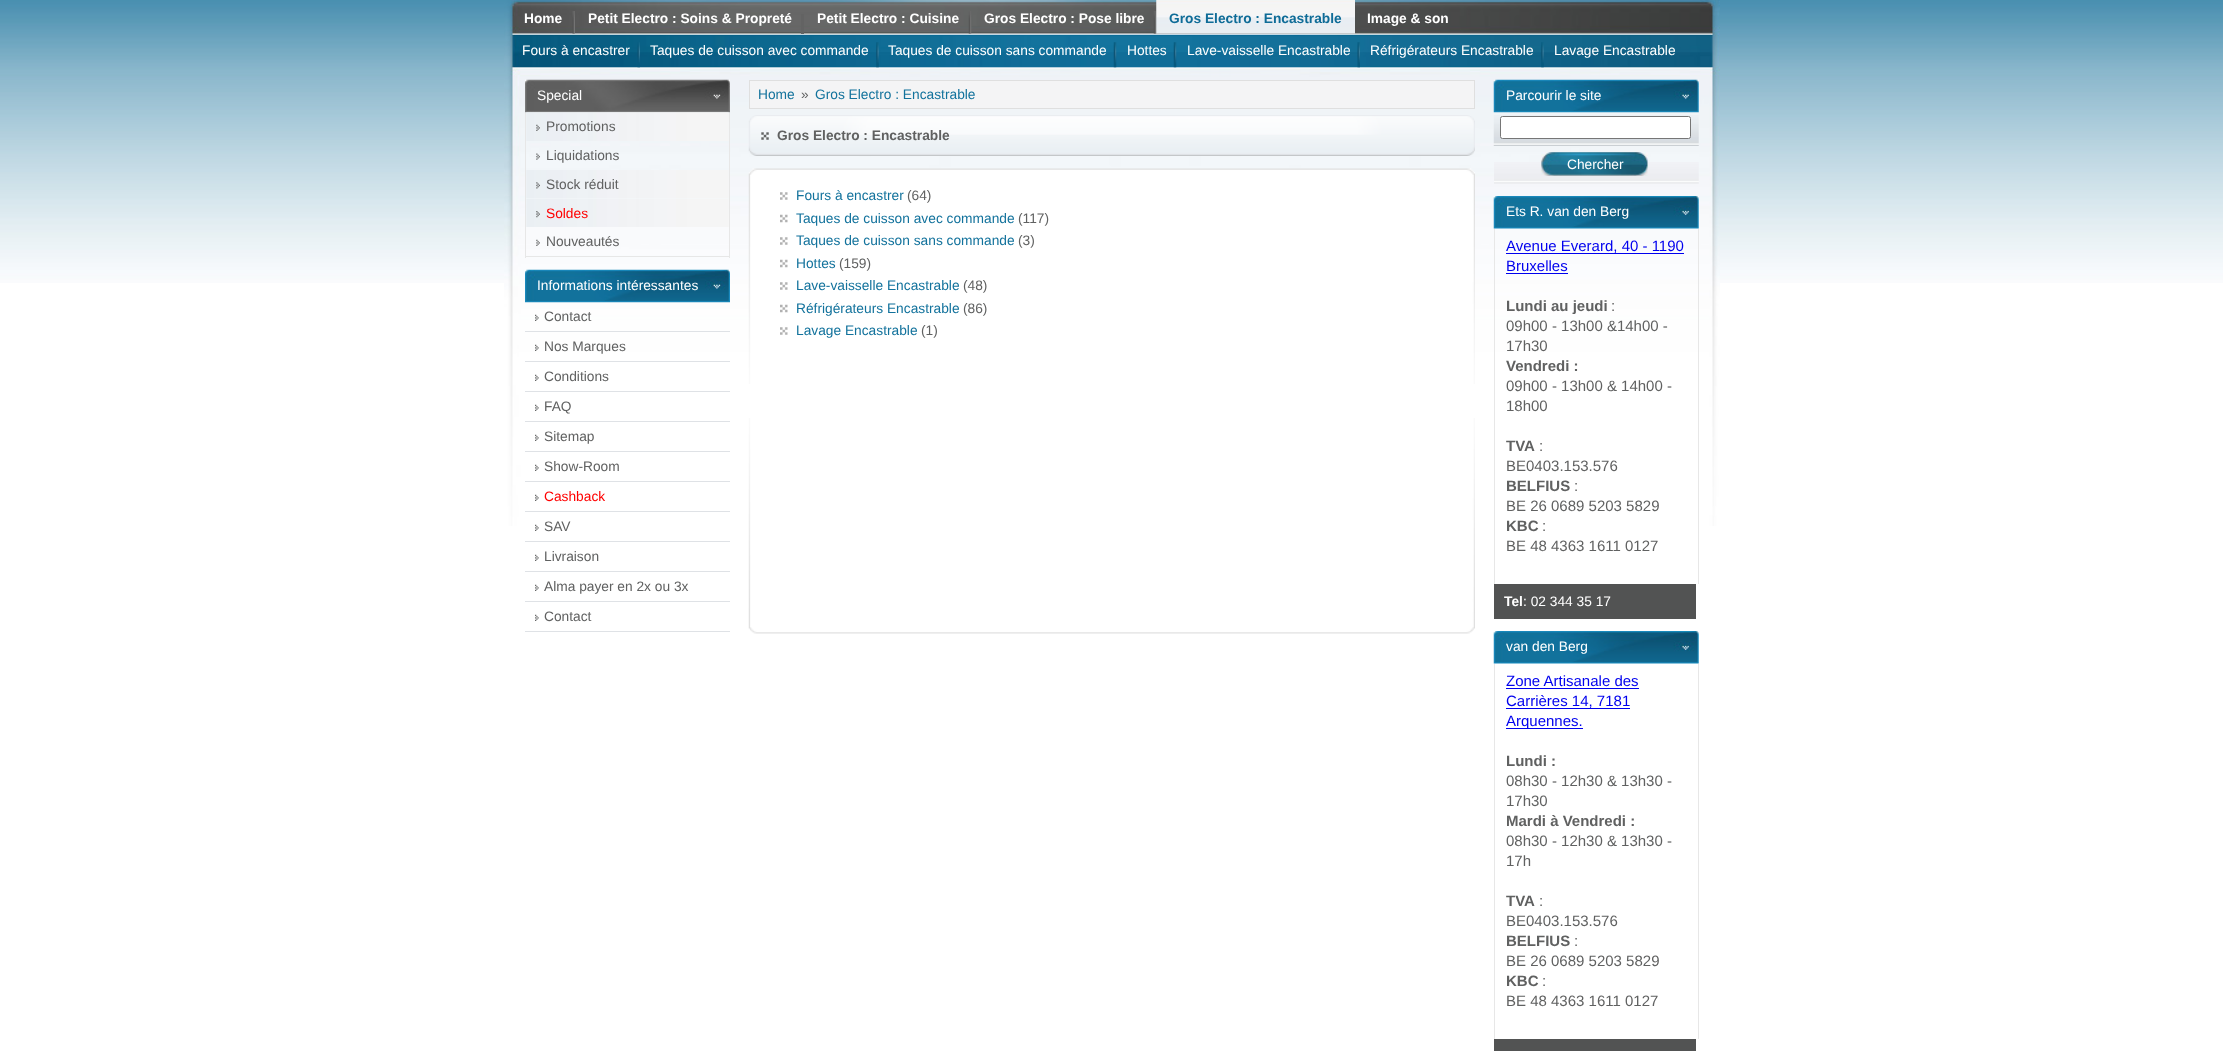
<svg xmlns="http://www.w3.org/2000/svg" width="2223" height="1051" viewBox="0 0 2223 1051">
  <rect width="100%" height="100%" fill="#ffffff"/>
  <image x="0" y="0" width="2223" height="283" href="img1.png"/>
  <image x="504" y="0" width="1216" height="526" href="img2.png"/>
  <image x="572" y="11" width="3" height="23" href="img3.png"/>
  <text x="524" y="23" font-family="Liberation Sans" font-size="13.75" font-weight="bold" fill="#ffffff">Home</text>
  <rect x="801" y="14" width="3" height="20" fill="#636363"/>
  <text x="588" y="23" font-family="Liberation Sans" font-size="13.75" font-weight="bold" fill="#ffffff">Petit Electro : Soins &amp; Propreté</text>
  <image x="968" y="11" width="4" height="23" href="img4.png"/>
  <text x="817" y="23" font-family="Liberation Sans" font-size="13.75" font-weight="bold" fill="#ffffff">Petit Electro : Cuisine</text>
  <image x="1153" y="11" width="4" height="23" href="img5.png"/>
  <text x="984" y="23" font-family="Liberation Sans" font-size="13.75" font-weight="bold" fill="#ffffff">Gros Electro : Pose libre</text>
  <image x="1156" y="0" width="199" height="34" href="img6.png"/>
  <text x="1169" y="23" font-family="Liberation Sans" font-size="13.75" font-weight="bold" fill="#0f6c97">Gros Electro : Encastrable</text>
  <text x="1367" y="23" font-family="Liberation Sans" font-size="13.75" font-weight="bold" fill="#ffffff">Image &amp; son</text>
  <image x="637" y="42" width="3" height="26" href="img7.png"/>
  <text x="522" y="55" font-family="Liberation Sans" font-size="13.75" fill="#ffffff">Fours à encastrer</text>
  <image x="876" y="42" width="3" height="26" href="img8.png"/>
  <text x="650" y="55" font-family="Liberation Sans" font-size="13.75" fill="#ffffff">Taques de cuisson avec commande</text>
  <image x="1113" y="42" width="4" height="26" href="img9.png"/>
  <text x="888" y="55" font-family="Liberation Sans" font-size="13.75" fill="#ffffff">Taques de cuisson sans commande</text>
  <image x="1173" y="42" width="4" height="26" href="img10.png"/>
  <text x="1127" y="55" font-family="Liberation Sans" font-size="13.75" fill="#ffffff">Hottes</text>
  <image x="1357" y="42" width="3" height="26" href="img11.png"/>
  <text x="1187" y="55" font-family="Liberation Sans" font-size="13.75" fill="#ffffff">Lave-vaisselle Encastrable</text>
  <image x="1541" y="42" width="3" height="26" href="img12.png"/>
  <text x="1370" y="55" font-family="Liberation Sans" font-size="13.75" fill="#ffffff">Réfrigérateurs Encastrable</text>
  <text x="1554" y="55" font-family="Liberation Sans" font-size="13.75" fill="#ffffff">Lavage Encastrable</text>
  <image x="525" y="79" width="205" height="34" href="img13.png"/>
  <text x="537" y="100" font-family="Liberation Sans" font-size="13.75" fill="#ffffff">Special</text>
  <image x="526" y="112" width="203" height="29" href="img14.png"/>
  <rect x="729" y="113" width="1" height="145" fill="#e7e7e7"/>
  <rect x="525" y="113" width="1" height="115" fill="#e7e7e7"/>
  <image x="536" y="124" width="4" height="7" href="img15.png"/>
  <text x="546" y="131" font-family="Liberation Sans" font-size="13.75" fill="#606161">Promotions</text>
  <image x="536" y="153" width="4" height="7" href="img16.png"/>
  <text x="546" y="160" font-family="Liberation Sans" font-size="13.75" fill="#606161">Liquidations</text>
  <image x="526" y="170" width="203" height="29" href="img17.png"/>
  <image x="536" y="182" width="4" height="7" href="img18.png"/>
  <text x="546" y="189" font-family="Liberation Sans" font-size="13.75" fill="#606161">Stock réduit</text>
  <image x="526" y="199" width="203" height="28" href="img19.png"/>
  <image x="536" y="211" width="4" height="7" href="img20.png"/>
  <text x="546" y="218" font-family="Liberation Sans" font-size="13.75" fill="#ff0000">Soldes</text>
  <rect x="525" y="256" width="205" height="1" fill="#e7e7e7"/>
  <rect x="525" y="228" width="1" height="30" fill="#e7e7e7"/>
  <image x="536" y="239" width="4" height="7" href="img21.png"/>
  <text x="546" y="246" font-family="Liberation Sans" font-size="13.75" fill="#606161">Nouveautés</text>
  <image x="525" y="269" width="205" height="34" href="img22.png"/>
  <text x="537" y="290" font-family="Liberation Sans" font-size="13.75" fill="#ffffff">Informations intéressantes</text>
  <rect x="525" y="331" width="205" height="1" fill="#dfe2e6"/>
  <image x="535" y="314" width="4" height="7" href="img23.png"/>
  <text x="544" y="321" font-family="Liberation Sans" font-size="13.75" fill="#606161">Contact</text>
  <rect x="525" y="361" width="205" height="1" fill="#dfe2e6"/>
  <image x="535" y="344" width="4" height="7" href="img24.png"/>
  <text x="544" y="351" font-family="Liberation Sans" font-size="13.75" fill="#606161">Nos Marques</text>
  <rect x="525" y="391" width="205" height="1" fill="#dfe2e6"/>
  <image x="535" y="374" width="4" height="7" href="img25.png"/>
  <text x="544" y="381" font-family="Liberation Sans" font-size="13.75" fill="#606161">Conditions</text>
  <rect x="525" y="421" width="205" height="1" fill="#dfe2e6"/>
  <image x="535" y="404" width="4" height="7" href="img25.png"/>
  <text x="544" y="411" font-family="Liberation Sans" font-size="13.75" fill="#606161">FAQ</text>
  <rect x="525" y="451" width="205" height="1" fill="#dfe2e6"/>
  <image x="535" y="434" width="4" height="7" href="img25.png"/>
  <text x="544" y="441" font-family="Liberation Sans" font-size="13.75" fill="#606161">Sitemap</text>
  <rect x="525" y="481" width="205" height="1" fill="#dfe2e6"/>
  <image x="535" y="464" width="4" height="7" href="img25.png"/>
  <text x="544" y="471" font-family="Liberation Sans" font-size="13.75" fill="#606161">Show-Room</text>
  <rect x="525" y="511" width="205" height="1" fill="#dfe2e6"/>
  <image x="535" y="494" width="4" height="7" href="img25.png"/>
  <text x="544" y="501" font-family="Liberation Sans" font-size="13.75" fill="#ff0000">Cashback</text>
  <rect x="525" y="541" width="205" height="1" fill="#dfe2e6"/>
  <image x="535" y="524" width="4" height="7" href="img25.png"/>
  <text x="544" y="531" font-family="Liberation Sans" font-size="13.75" fill="#606161">SAV</text>
  <rect x="525" y="571" width="205" height="1" fill="#dfe2e6"/>
  <image x="535" y="554" width="4" height="7" href="img25.png"/>
  <text x="544" y="561" font-family="Liberation Sans" font-size="13.75" fill="#606161">Livraison</text>
  <rect x="525" y="601" width="205" height="1" fill="#dfe2e6"/>
  <image x="535" y="584" width="4" height="7" href="img25.png"/>
  <text x="544" y="591" font-family="Liberation Sans" font-size="13.75" fill="#606161">Alma payer en 2x ou 3x</text>
  <rect x="525" y="631" width="205" height="1" fill="#dfe2e6"/>
  <image x="535" y="614" width="4" height="7" href="img25.png"/>
  <text x="544" y="621" font-family="Liberation Sans" font-size="13.75" fill="#606161">Contact</text>
  <rect x="749.5" y="80.5" width="725" height="28" fill="#f4f4f5" stroke="#dfdfdf"/>
  <text x="758" y="99" font-family="Liberation Sans" font-size="13.75" fill="#12729c">Home</text>
  <text x="801" y="99" font-family="Liberation Sans" font-size="13.75" fill="#606161">»</text>
  <text x="815" y="99" font-family="Liberation Sans" font-size="13.75" fill="#12729c">Gros Electro : Encastrable</text>
  <image x="748" y="115" width="727" height="41" href="img26.png"/>
  <text x="777" y="140" font-family="Liberation Sans" font-size="13.75" font-weight="bold" fill="#606161">Gros Electro : Encastrable</text>
  <image x="748" y="168" width="727" height="216" href="img27.png"/>
  <image x="748" y="418" width="727" height="216" href="img28.png"/>
  <image x="780" y="192" width="8" height="8" href="img29.png"/>
  <text x="796" y="200" font-family="Liberation Sans" font-size="13.75" fill="#12729c">Fours à encastrer</text>
  <text x="907" y="200" font-family="Liberation Sans" font-size="13.75" fill="#606161">(64)</text>
  <image x="780" y="214" width="8" height="9" href="img30.png"/>
  <text x="796" y="223" font-family="Liberation Sans" font-size="13.75" fill="#12729c">Taques de cuisson avec commande</text>
  <text x="1018" y="223" font-family="Liberation Sans" font-size="13.75" fill="#606161">(117)</text>
  <image x="780" y="237" width="8" height="8" href="img29.png"/>
  <text x="796" y="245" font-family="Liberation Sans" font-size="13.75" fill="#12729c">Taques de cuisson sans commande</text>
  <text x="1018" y="245" font-family="Liberation Sans" font-size="13.75" fill="#606161">(3)</text>
  <image x="780" y="259" width="8" height="9" href="img30.png"/>
  <text x="796" y="268" font-family="Liberation Sans" font-size="13.75" fill="#12729c">Hottes</text>
  <text x="839" y="268" font-family="Liberation Sans" font-size="13.75" fill="#606161">(159)</text>
  <image x="780" y="282" width="8" height="8" href="img29.png"/>
  <text x="796" y="290" font-family="Liberation Sans" font-size="13.75" fill="#12729c">Lave-vaisselle Encastrable</text>
  <text x="963" y="290" font-family="Liberation Sans" font-size="13.75" fill="#606161">(48)</text>
  <image x="780" y="304" width="8" height="9" href="img30.png"/>
  <text x="796" y="313" font-family="Liberation Sans" font-size="13.75" fill="#12729c">Réfrigérateurs Encastrable</text>
  <text x="963" y="313" font-family="Liberation Sans" font-size="13.75" fill="#606161">(86)</text>
  <image x="780" y="327" width="8" height="8" href="img29.png"/>
  <text x="796" y="335" font-family="Liberation Sans" font-size="13.75" fill="#12729c">Lavage Encastrable</text>
  <text x="921" y="335" font-family="Liberation Sans" font-size="13.75" fill="#606161">(1)</text>
  <image x="1493" y="79" width="206" height="34" href="img31.png"/>
  <text x="1506" y="100" font-family="Liberation Sans" font-size="13.75" fill="#ffffff">Parcourir le site</text>
  <image x="1493" y="115" width="206" height="31" href="img32.png"/>
  <rect x="1500.5" y="116.5" width="190" height="22" rx="2" fill="#ffffff" stroke="#767676"/>
  <image x="1494" y="162" width="205" height="22" href="img33.png"/>
  <image x="1541" y="152" width="107" height="24" href="img34.png"/>
  <text x="1567" y="169" font-family="Liberation Sans" font-size="13.75" fill="#ffffff">Chercher</text>
  <image x="1493" y="196" width="206" height="33" href="img35.png"/>
  <text x="1506" y="216" font-family="Liberation Sans" font-size="13.75" fill="#ffffff">Ets R. van den Berg</text>
  <rect x="1698" y="229" width="1" height="355" fill="#e7e7e7"/>
  <rect x="1494" y="229" width="1" height="355" fill="#e7e7e7"/>
  <text x="1506" y="251" font-family="Liberation Sans" font-size="15" fill="#0000ee">Avenue Everard, 40 - 1190</text>
  <rect x="1506" y="253" width="178" height="1" fill="#0000ee"/>
  <text x="1506" y="271" font-family="Liberation Sans" font-size="15" fill="#0000ee">Bruxelles</text>
  <rect x="1506" y="273" width="62" height="1" fill="#0000ee"/>
  <text x="1506" y="311" font-family="Liberation Sans" font-size="15" font-weight="bold" fill="#606161">Lundi au jeudi</text>
  <text x="1611" y="311" font-family="Liberation Sans" font-size="15" fill="#606161">:</text>
  <text x="1506" y="331" font-family="Liberation Sans" font-size="15" fill="#606161">09h00 - 13h00 &amp;14h00 -</text>
  <text x="1506" y="351" font-family="Liberation Sans" font-size="15" fill="#606161">17h30</text>
  <text x="1506" y="371" font-family="Liberation Sans" font-size="15" font-weight="bold" fill="#606161">Vendredi :</text>
  <text x="1506" y="391" font-family="Liberation Sans" font-size="15" fill="#606161">09h00 - 13h00 &amp; 14h00 -</text>
  <text x="1506" y="411" font-family="Liberation Sans" font-size="15" fill="#606161">18h00</text>
  <text x="1506" y="451" font-family="Liberation Sans" font-size="15" font-weight="bold" fill="#606161">TVA</text>
  <text x="1539" y="451" font-family="Liberation Sans" font-size="15" fill="#606161">:</text>
  <text x="1506" y="471" font-family="Liberation Sans" font-size="15" fill="#606161">BE0403.153.576</text>
  <text x="1506" y="491" font-family="Liberation Sans" font-size="15" font-weight="bold" fill="#606161">BELFIUS</text>
  <text x="1574" y="491" font-family="Liberation Sans" font-size="15" fill="#606161">:</text>
  <text x="1506" y="511" font-family="Liberation Sans" font-size="15" fill="#606161">BE 26 0689 5203 5829</text>
  <text x="1506" y="531" font-family="Liberation Sans" font-size="15" font-weight="bold" fill="#606161">KBC</text>
  <text x="1542" y="531" font-family="Liberation Sans" font-size="15" fill="#606161">:</text>
  <text x="1506" y="551" font-family="Liberation Sans" font-size="15" fill="#606161">BE 48 4363 1611 0127</text>
  <rect x="1494" y="584" width="202" height="35" fill="#525353"/>
  <text x="1504" y="606" font-family="Liberation Sans" font-size="13.75" font-weight="bold" fill="#ffffff">Tel</text>
  <text x="1523" y="606" font-family="Liberation Sans" font-size="13.75" fill="#ffffff">: 02 344 35 17</text>
  <image x="1493" y="631" width="206" height="33" href="img36.png"/>
  <text x="1506" y="651" font-family="Liberation Sans" font-size="13.75" fill="#ffffff">van den Berg</text>
  <rect x="1698" y="664" width="1" height="375" fill="#e7e7e7"/>
  <rect x="1494" y="664" width="1" height="375" fill="#e7e7e7"/>
  <text x="1506" y="686" font-family="Liberation Sans" font-size="15" fill="#0000ee">Zone Artisanale des</text>
  <rect x="1506" y="688" width="133" height="1" fill="#0000ee"/>
  <text x="1506" y="706" font-family="Liberation Sans" font-size="15" fill="#0000ee">Carrières 14, 7181</text>
  <rect x="1506" y="708" width="124" height="1" fill="#0000ee"/>
  <rect x="1506" y="728" width="77" height="1" fill="#0000ee"/>
  <text x="1506" y="726" font-family="Liberation Sans" font-size="15" fill="#0000ee">Arquennes.</text>
  <text x="1506" y="766" font-family="Liberation Sans" font-size="15" font-weight="bold" fill="#606161">Lundi :</text>
  <text x="1506" y="786" font-family="Liberation Sans" font-size="15" fill="#606161">08h30 - 12h30 &amp; 13h30 -</text>
  <text x="1506" y="806" font-family="Liberation Sans" font-size="15" fill="#606161">17h30</text>
  <text x="1506" y="826" font-family="Liberation Sans" font-size="15" font-weight="bold" fill="#606161">Mardi à Vendredi :</text>
  <text x="1506" y="846" font-family="Liberation Sans" font-size="15" fill="#606161">08h30 - 12h30 &amp; 13h30 -</text>
  <text x="1506" y="866" font-family="Liberation Sans" font-size="15" fill="#606161">17h</text>
  <text x="1506" y="906" font-family="Liberation Sans" font-size="15" font-weight="bold" fill="#606161">TVA</text>
  <text x="1539" y="906" font-family="Liberation Sans" font-size="15" fill="#606161">:</text>
  <text x="1506" y="926" font-family="Liberation Sans" font-size="15" fill="#606161">BE0403.153.576</text>
  <text x="1506" y="946" font-family="Liberation Sans" font-size="15" font-weight="bold" fill="#606161">BELFIUS</text>
  <text x="1574" y="946" font-family="Liberation Sans" font-size="15" fill="#606161">:</text>
  <text x="1506" y="966" font-family="Liberation Sans" font-size="15" fill="#606161">BE 26 0689 5203 5829</text>
  <text x="1506" y="986" font-family="Liberation Sans" font-size="15" font-weight="bold" fill="#606161">KBC</text>
  <text x="1542" y="986" font-family="Liberation Sans" font-size="15" fill="#606161">:</text>
  <text x="1506" y="1006" font-family="Liberation Sans" font-size="15" fill="#606161">BE 48 4363 1611 0127</text>
  <rect x="1494" y="1039" width="202" height="12" fill="#525353"/>
</svg>
